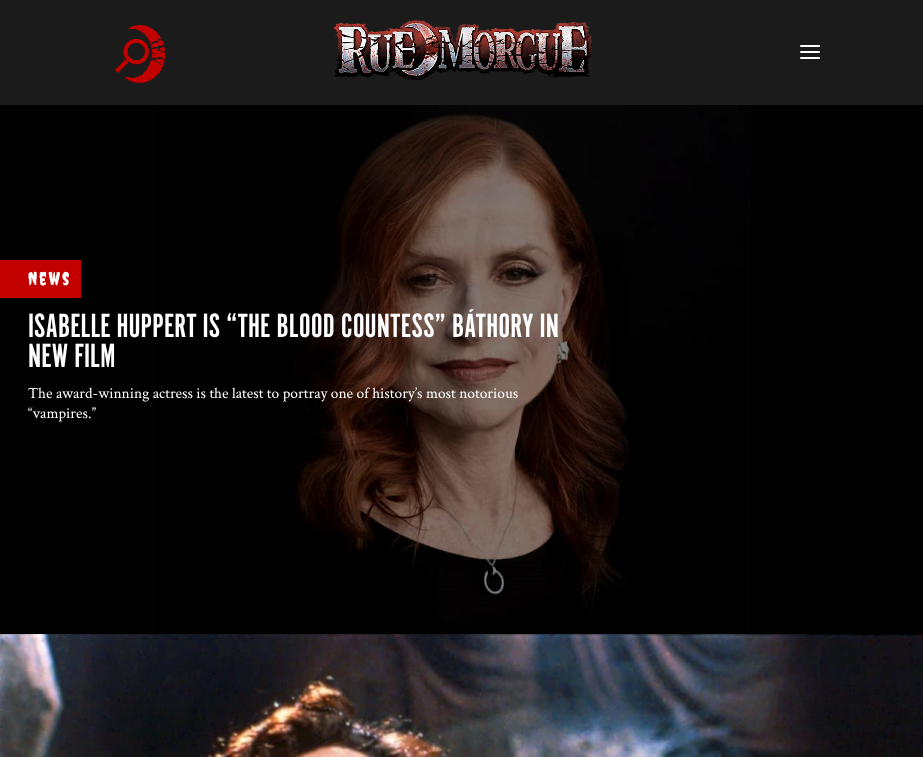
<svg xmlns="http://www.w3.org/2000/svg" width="923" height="757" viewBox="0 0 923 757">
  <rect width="100%" height="100%" fill="#000000"/>
  <rect x="0" y="0" width="923" height="105" fill="#1b1b1b"/>
  <image x="334" y="20" width="259" height="60" href="img1.png"/>
  <image x="115" y="25" width="50" height="58" href="img2.png"/>
  <image x="800" y="45" width="20" height="14" href="img3.png"/>
  <image x="153" y="105" width="597" height="529" href="img4.png"/>
  <rect x="0" y="260" width="81" height="38" fill="#c20000"/>
  <text x="28" y="285" font-family="Creepster" font-size="18" letter-spacing="2" fill="#ffffff">News</text>
  <text x="28" y="337" font-family="'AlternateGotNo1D'" font-size="35" fill="#ffffff">ISABELLE HUPPERT IS “THE BLOOD COUNTESS” BÁTHORY IN</text>
  <text x="28" y="367" font-family="'AlternateGotNo1D'" font-size="35" fill="#ffffff">NEW FILM</text>
  <text x="28" y="398" font-family="Crimson Text" font-size="15.4" fill="#ffffff">The award-winning actress is the latest to portray one of history’s most notorious</text>
  <text x="28" y="418" font-family="Crimson Text" font-size="15.4" fill="#ffffff">“vampires.”</text>
  <image x="0" y="634" width="923" height="123" href="img5.png"/>
</svg>
